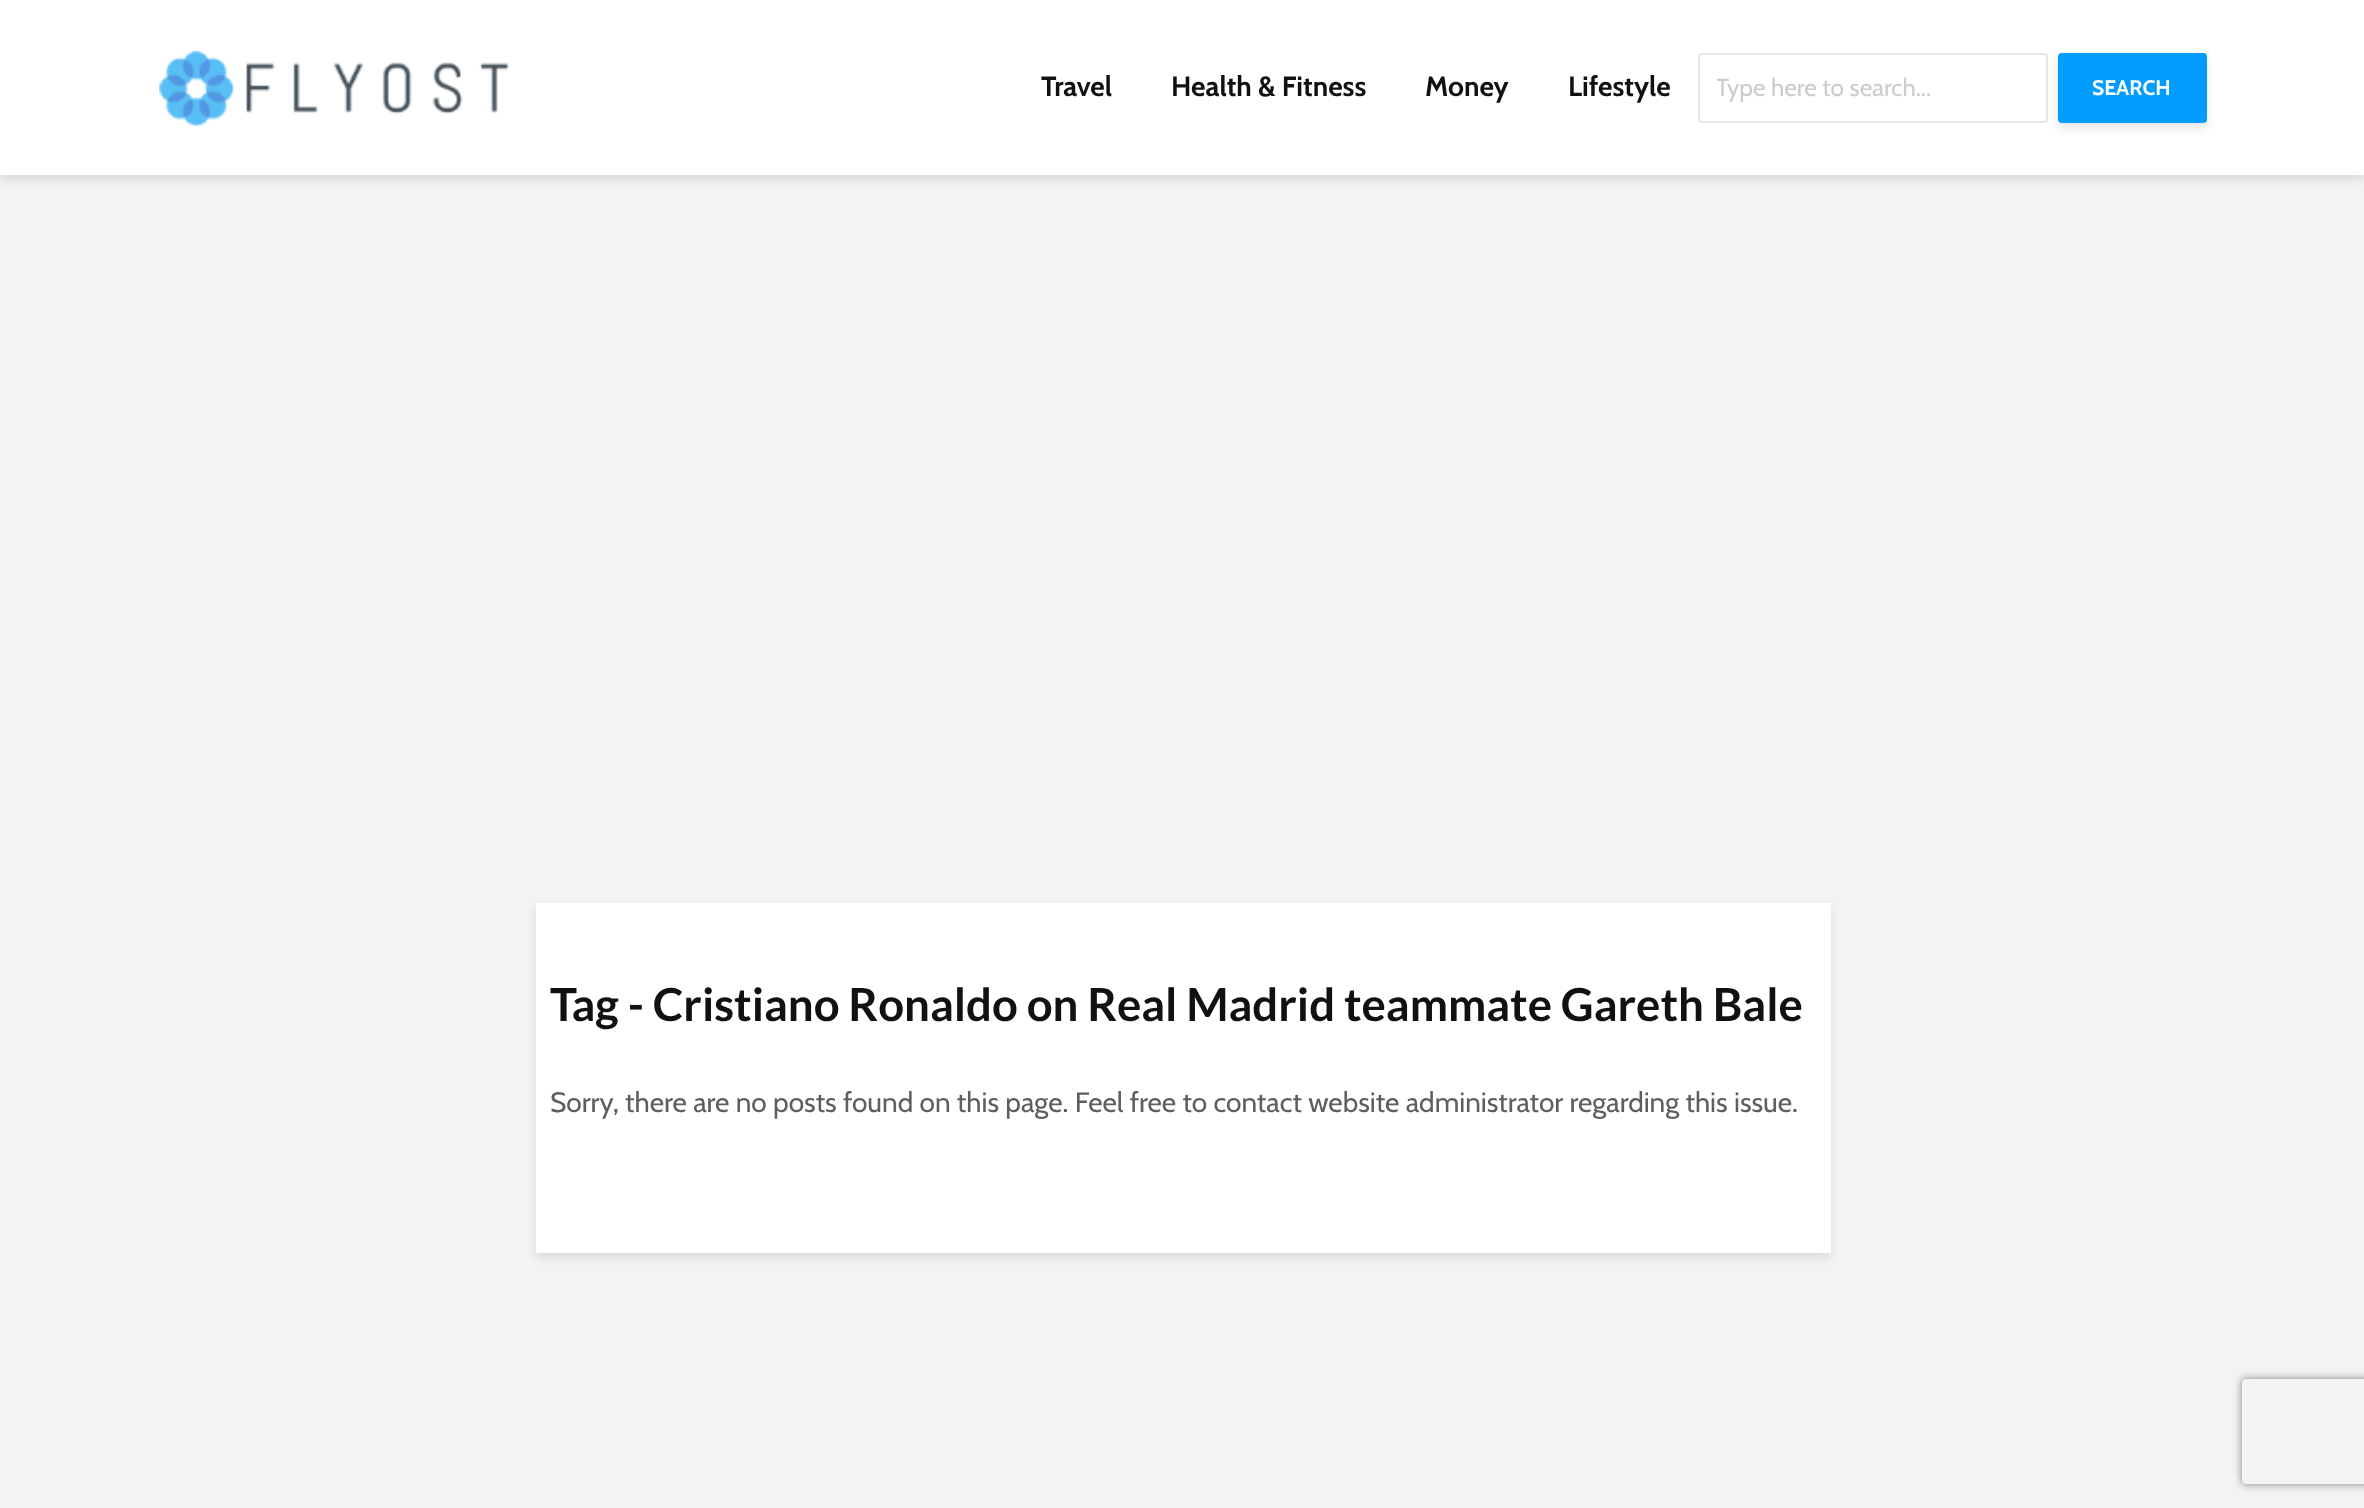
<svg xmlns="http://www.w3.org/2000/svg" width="2364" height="1508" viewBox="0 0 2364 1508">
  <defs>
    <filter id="blur1" x="-50%" y="-200%" width="200%" height="500%"><feGaussianBlur stdDeviation="4.5"/></filter>
    <clipPath id="clip1"><rect x="1717" y="72" width="311" height="31"/></clipPath>
    <clipPath id="clip2"><path d="M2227 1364H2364V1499H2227ZM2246 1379H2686C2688 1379 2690 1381 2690 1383V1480C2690 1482 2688 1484 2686 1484H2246C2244 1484 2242 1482 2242 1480V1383C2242 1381 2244 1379 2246 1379Z" clip-rule="evenodd"/></clipPath>
  </defs>
  <rect width="100%" height="100%" fill="#f3f3f3"/>
  <rect x="0" y="5" width="2364" height="175" fill="#000101" fill-opacity="0.1" filter="url(#blur1)"/>
  <rect x="0" y="0" width="2364" height="175" fill="#ffffff"/>
  <image x="159" y="50" width="351" height="76" href="img1.png"/>
  <text x="1041" y="96" font-family="Cabin" font-size="28" font-weight="bold" fill="#111111">Travel</text>
  <text x="1171" y="96" font-family="Cabin" font-size="28" font-weight="bold" fill="#111111">Health &amp; Fitness</text>
  <text x="1425" y="96" font-family="Cabin" font-size="28" font-weight="bold" fill="#111111">Money</text>
  <text x="1568" y="96" font-family="Cabin" font-size="28" font-weight="bold" fill="#111111">Lifestyle</text>
  <rect x="1699" y="54" width="348" height="68" rx="3" fill="none" stroke="#e7e7e7" stroke-width="2"/>
  <g clip-path="url(#clip1)">
    <text x="1716" y="96" font-family="Cabin" font-size="24.5" fill="#cccccc">Type here to search...</text>
  </g>
  <rect x="2058" y="58" width="149" height="70" rx="4" fill="#000000" fill-opacity="0.1" filter="url(#blur1)"/>
  <rect x="2058" y="53" width="149" height="70" rx="4" fill="#009cff"/>
  <text x="2092" y="95" font-family="Cabin" font-size="21" font-weight="bold" fill="#ffffff">SEARCH</text>
  <rect x="536" y="908" width="1295" height="350" fill="#000101" fill-opacity="0.1" filter="url(#blur1)"/>
  <rect x="536" y="903" width="1295" height="350" fill="#ffffff"/>
  <text x="550" y="1021" font-family="Lato" font-size="45.5" font-weight="bold" fill="#111111">Tag - Cristiano Ronaldo on Real Madrid teammate Gareth Bale</text>
  <text x="550" y="1112" font-family="Cabin" font-size="28" fill="#5e5e5e">Sorry, there are no posts found on this page. Feel free to contact website administrator regarding this issue.</text>
  <g clip-path="url(#clip2)">
    <rect x="2242" y="1379" width="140" height="105" rx="4" fill="#808080" filter="url(#blur1)"/>
  </g>
</svg>
